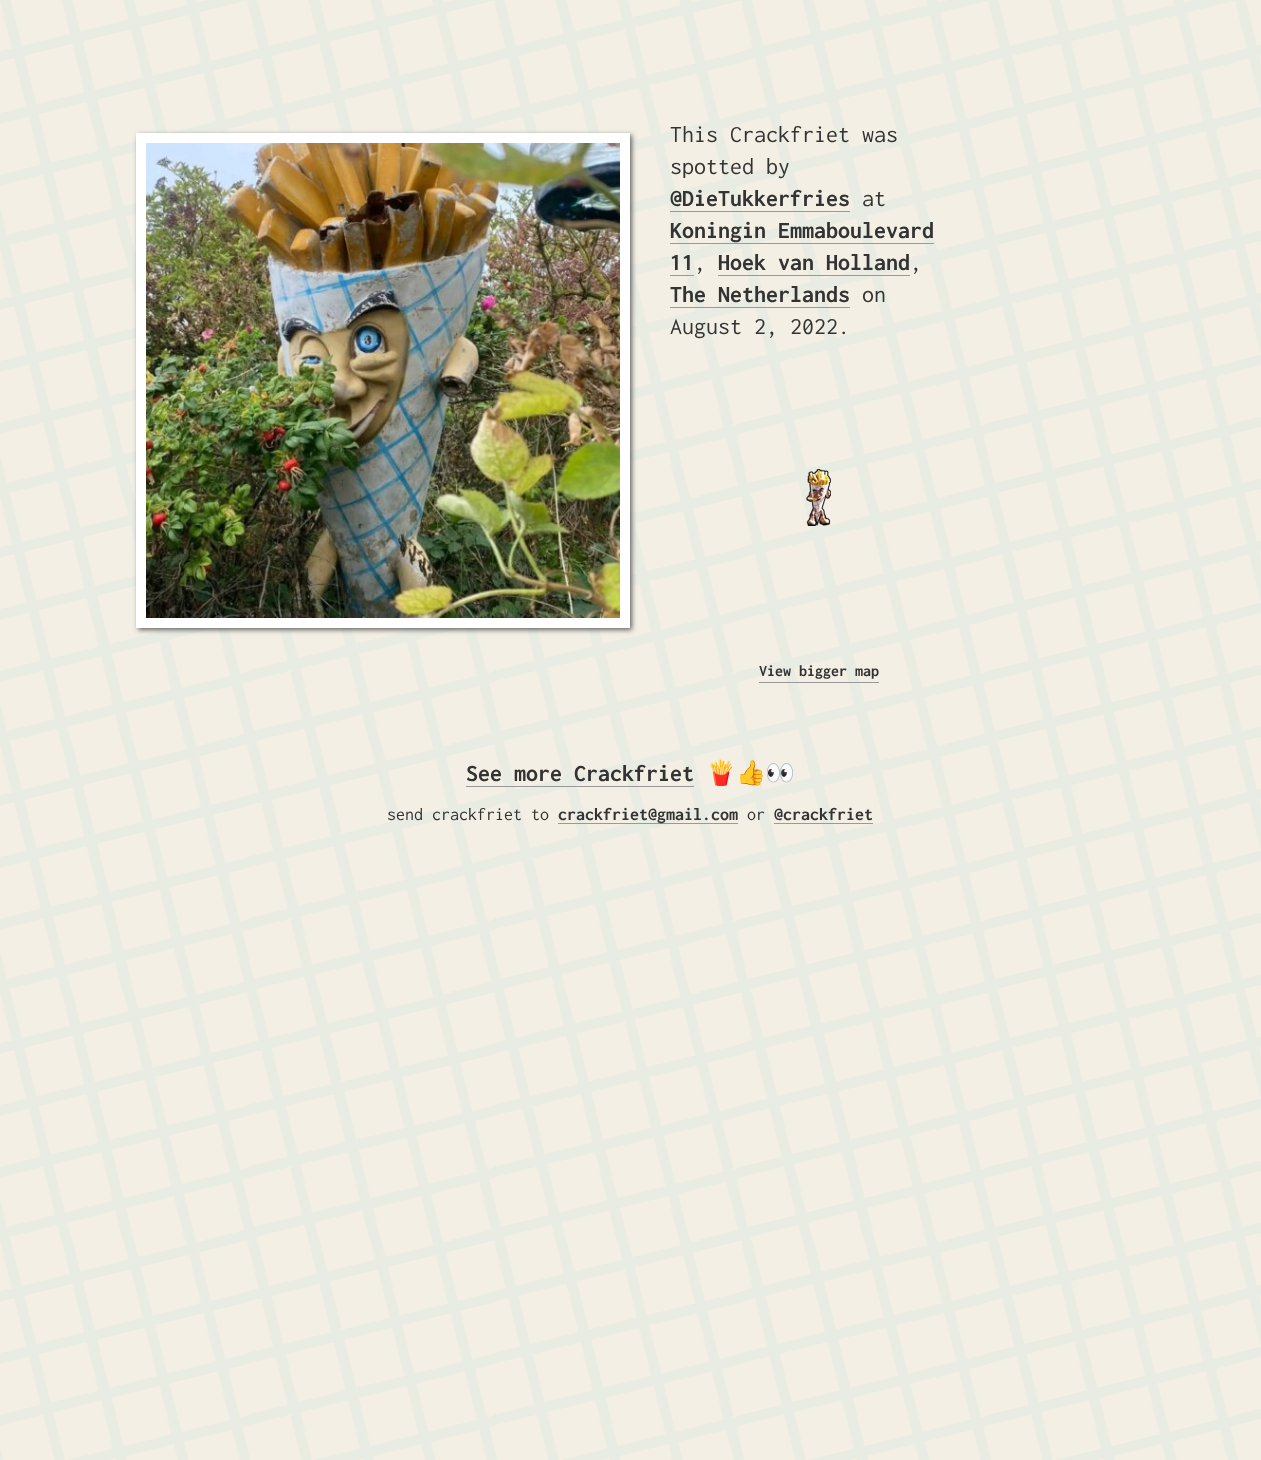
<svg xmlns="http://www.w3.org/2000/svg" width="1261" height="1460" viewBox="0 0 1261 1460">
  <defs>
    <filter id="blur1" x="-50%" y="-200%" width="200%" height="500%"><feGaussianBlur stdDeviation="2.5"/></filter>
  </defs>
  <rect width="100%" height="100%" fill="#ffffff"/>
  <image x="0" y="0" width="1261" height="1460" href="img1.png"/>
  <rect x="138" y="135" width="494" height="495" fill="#666666" filter="url(#blur1)"/>
  <rect x="141" y="138" width="484" height="485" fill="none" stroke="#ffffff" stroke-width="10"/>
  <image x="146" y="143" width="474" height="475" href="img2.png"/>
  <text x="670" y="142" font-family="Inconsolata" font-size="24" fill="#333333">This Crackfriet was</text>
  <text x="670" y="174" font-family="Inconsolata" font-size="24" fill="#333333">spotted by</text>
  <text x="670" y="206" font-family="Inconsolata" font-size="24" font-weight="bold" fill="#333333">@DieTukkerfries</text>
  <rect x="670" y="211" width="180" height="1" fill="#999999"/>
  <text x="862" y="206" font-family="Inconsolata" font-size="24" fill="#333333">at</text>
  <text x="670" y="238" font-family="Inconsolata" font-size="24" font-weight="bold" fill="#333333">Koningin Emmaboulevard</text>
  <rect x="670" y="243" width="264" height="1" fill="#999999"/>
  <text x="670" y="270" font-family="Inconsolata" font-size="24" font-weight="bold" fill="#333333">11</text>
  <rect x="670" y="275" width="24" height="1" fill="#999999"/>
  <text x="694" y="270" font-family="Inconsolata" font-size="24" fill="#333333">,</text>
  <text x="718" y="270" font-family="Inconsolata" font-size="24" font-weight="bold" fill="#333333">Hoek van Holland</text>
  <rect x="718" y="275" width="192" height="1" fill="#999999"/>
  <text x="910" y="270" font-family="Inconsolata" font-size="24" fill="#333333">,</text>
  <text x="670" y="302" font-family="Inconsolata" font-size="24" font-weight="bold" fill="#333333">The Netherlands</text>
  <rect x="670" y="307" width="180" height="1" fill="#999999"/>
  <text x="862" y="302" font-family="Inconsolata" font-size="24" fill="#333333">on</text>
  <text x="670" y="334" font-family="Inconsolata" font-size="24" fill="#333333">August 2, 2022.</text>
  <image x="806" y="469" width="25" height="57" href="img3.png"/>
  <rect x="759" y="682" width="120" height="1" fill="#999999"/>
  <text x="759" y="676" font-family="Inconsolata" font-size="16" font-weight="bold" fill="#333333">View bigger map</text>
  <text x="466" y="781" font-family="Inconsolata" font-size="24" font-weight="bold" fill="#333333">See more Crackfriet</text>
  <rect x="466" y="786" width="228" height="1" fill="#999999"/>
  <text x="706" y="781" font-family="Noto Color Emoji" font-size="24" fill="#333333">🍟👍👀</text>
  <text x="387" y="820" font-family="Inconsolata" font-size="18" fill="#333333">send crackfriet to</text>
  <rect x="558" y="823" width="180" height="1" fill="#999999"/>
  <text x="558" y="820" font-family="Inconsolata" font-size="18" font-weight="bold" fill="#333333">crackfriet@gmail.com</text>
  <text x="747" y="820" font-family="Inconsolata" font-size="18" fill="#333333">or</text>
  <text x="774" y="820" font-family="Inconsolata" font-size="18" font-weight="bold" fill="#333333">@crackfriet</text>
  <rect x="774" y="823" width="99" height="1" fill="#999999"/>
</svg>
